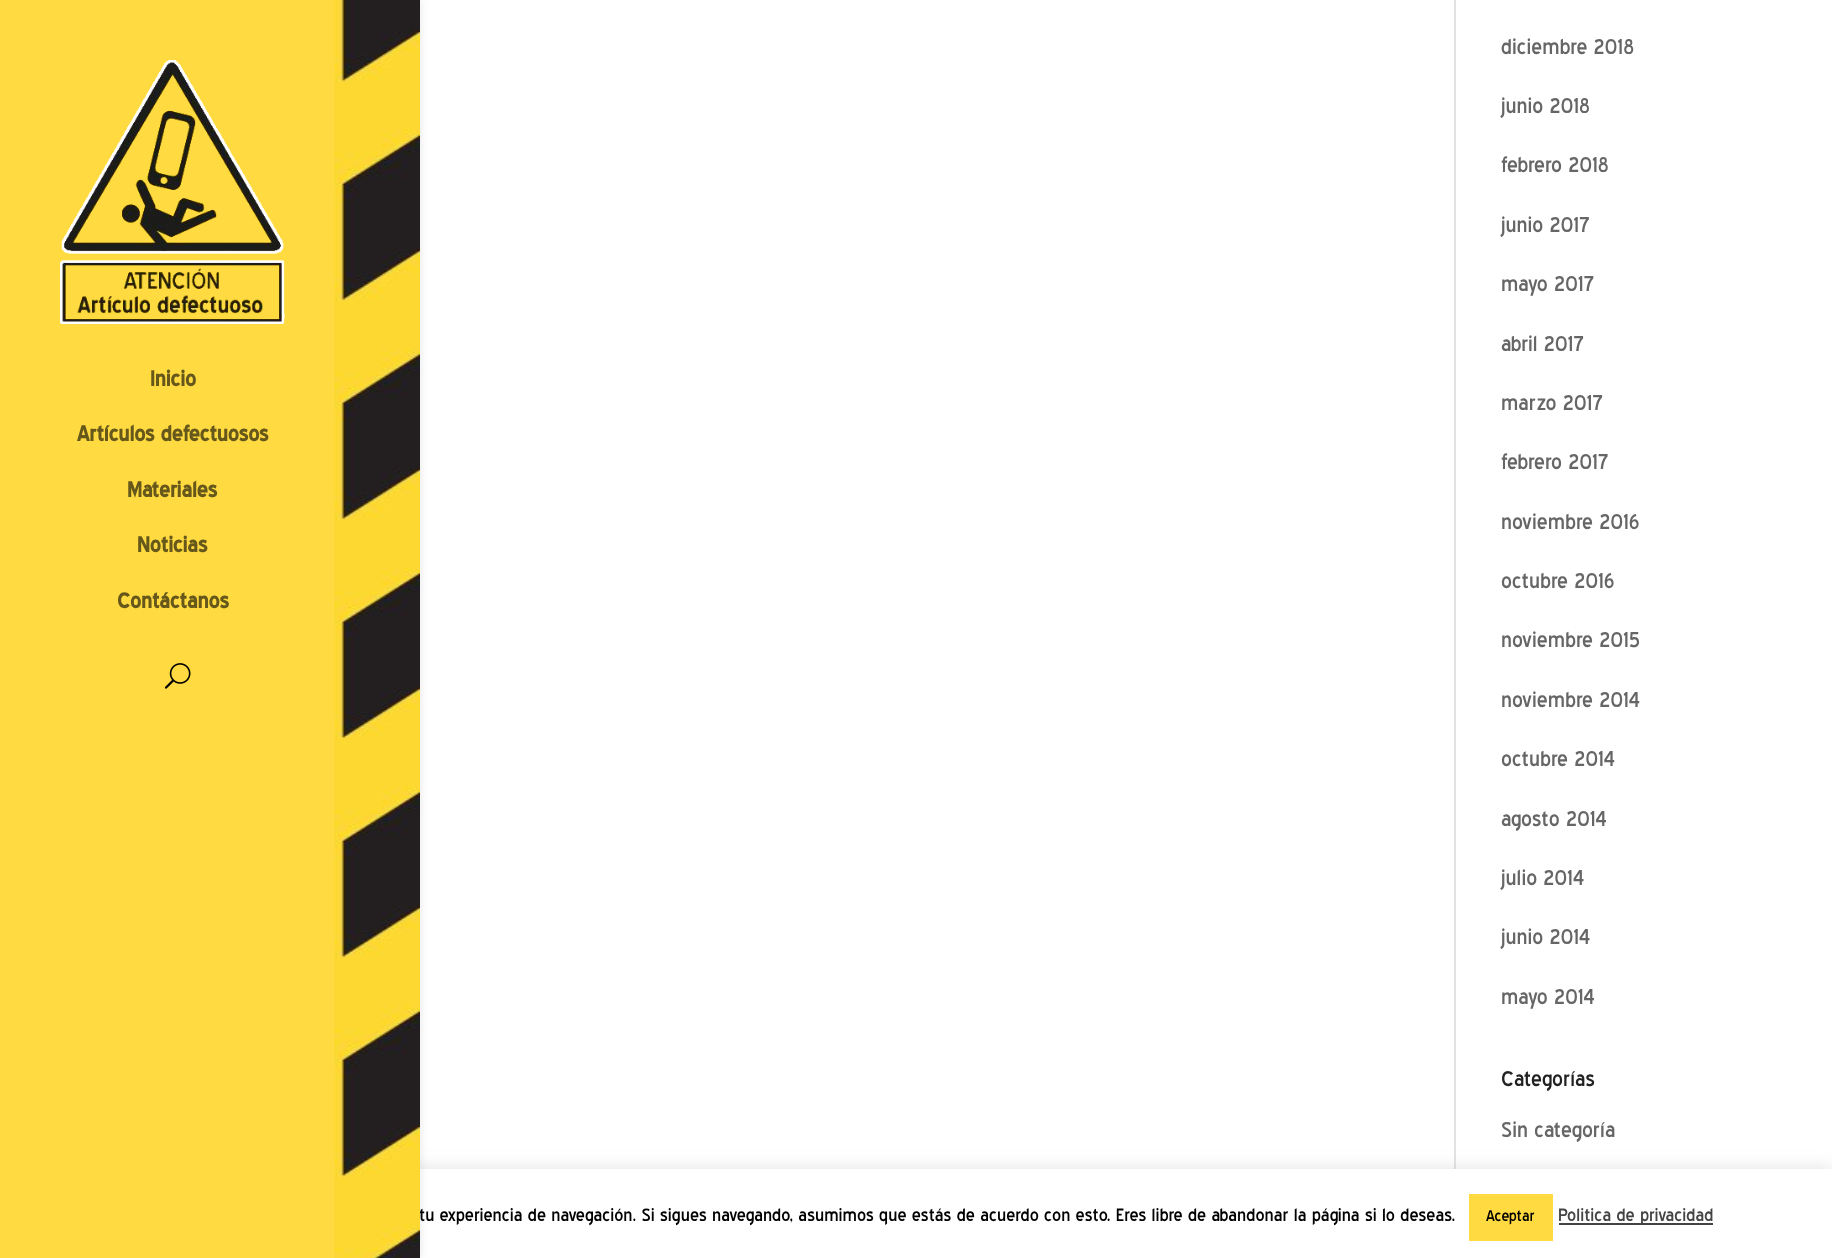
<svg xmlns="http://www.w3.org/2000/svg" width="1832" height="1258" viewBox="0 0 1832 1258">
  <defs>
    <filter id="blur1" x="-50%" y="-200%" width="200%" height="500%"><feGaussianBlur stdDeviation="7.5"/></filter>
    <filter id="blur2" x="-50%" y="-200%" width="200%" height="500%"><feGaussianBlur stdDeviation="5"/></filter>
  </defs>
  <rect width="100%" height="100%" fill="#ffffff"/>
  <rect x="1454" y="0" width="2" height="1169" fill="#e2e2e2"/>
  <rect x="0" y="1167" width="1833" height="90" fill="#acabab" fill-opacity="0.3" filter="url(#blur1)"/>
  <rect x="420" y="1169" width="1412" height="89" fill="#ffffff"/>
  <rect x="0" y="0" width="420" height="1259" fill="#000000" fill-opacity="0.1" filter="url(#blur2)"/>
  <rect x="0" y="0" width="335" height="1258" fill="#ffda40"/>
  <text x="419" y="1221" font-family="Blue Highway" font-size="22.5" fill="#000000">tu experiencia de navegación. Si sigues navegando, asumimos que estás de acuerdo con esto. Eres libre de abandonar la página si lo deseas.</text>
  <image x="334" y="0" width="86" height="1258" href="img1.png"/>
  <image x="60" y="60" width="225" height="264" href="img2.png"/>
  <text x="150" y="386" font-family="Blue Highway" font-size="27" font-weight="bold" fill="#66571a">Inicio</text>
  <text x="77" y="441" font-family="Blue Highway" font-size="27" font-weight="bold" fill="#66571a">Artículos defectuosos</text>
  <text x="127" y="497" font-family="Blue Highway" font-size="27" font-weight="bold" fill="#66571a">Materiales</text>
  <text x="137" y="552" font-family="Blue Highway" font-size="27" font-weight="bold" fill="#66571a">Noticias</text>
  <text x="117" y="608" font-family="Blue Highway" font-size="27" font-weight="bold" fill="#66571a">Contáctanos</text>
  <image x="164" y="663" width="27" height="26" href="img3.png"/>
  <text x="1501" y="54" font-family="Blue Highway" font-size="27" fill="#666666">diciembre 2018</text>
  <text x="1501" y="113" font-family="Blue Highway" font-size="27" fill="#666666">junio 2018</text>
  <text x="1501" y="172" font-family="Blue Highway" font-size="27" fill="#666666">febrero 2018</text>
  <text x="1501" y="232" font-family="Blue Highway" font-size="27" fill="#666666">junio 2017</text>
  <text x="1501" y="291" font-family="Blue Highway" font-size="27" fill="#666666">mayo 2017</text>
  <text x="1501" y="351" font-family="Blue Highway" font-size="27" fill="#666666">abril 2017</text>
  <text x="1501" y="410" font-family="Blue Highway" font-size="27" fill="#666666">marzo 2017</text>
  <text x="1501" y="469" font-family="Blue Highway" font-size="27" fill="#666666">febrero 2017</text>
  <text x="1501" y="529" font-family="Blue Highway" font-size="27" fill="#666666">noviembre 2016</text>
  <text x="1501" y="588" font-family="Blue Highway" font-size="27" fill="#666666">octubre 2016</text>
  <text x="1501" y="647" font-family="Blue Highway" font-size="27" fill="#666666">noviembre 2015</text>
  <text x="1501" y="707" font-family="Blue Highway" font-size="27" fill="#666666">noviembre 2014</text>
  <text x="1501" y="766" font-family="Blue Highway" font-size="27" fill="#666666">octubre 2014</text>
  <text x="1501" y="826" font-family="Blue Highway" font-size="27" fill="#666666">agosto 2014</text>
  <text x="1501" y="885" font-family="Blue Highway" font-size="27" fill="#666666">julio 2014</text>
  <text x="1501" y="944" font-family="Blue Highway" font-size="27" fill="#666666">junio 2014</text>
  <text x="1501" y="1004" font-family="Blue Highway" font-size="27" fill="#666666">mayo 2014</text>
  <text x="1501" y="1086" font-family="Blue Highway" font-size="27" fill="#222222">Categorías</text>
  <text x="1501" y="1137" font-family="Blue Highway" font-size="27" fill="#666666">Sin categoría</text>
  <rect x="1469" y="1194" width="84" height="47" fill="#ffda40"/>
  <text x="1486" y="1221" font-family="Blue Highway" font-size="19.5" fill="#000000">Aceptar</text>
  <rect x="1559" y="1223" width="154" height="2" fill="#444444"/>
  <text x="1558" y="1221" font-family="Blue Highway" font-size="22.5" fill="#444444">Politica de privacidad</text>
</svg>
